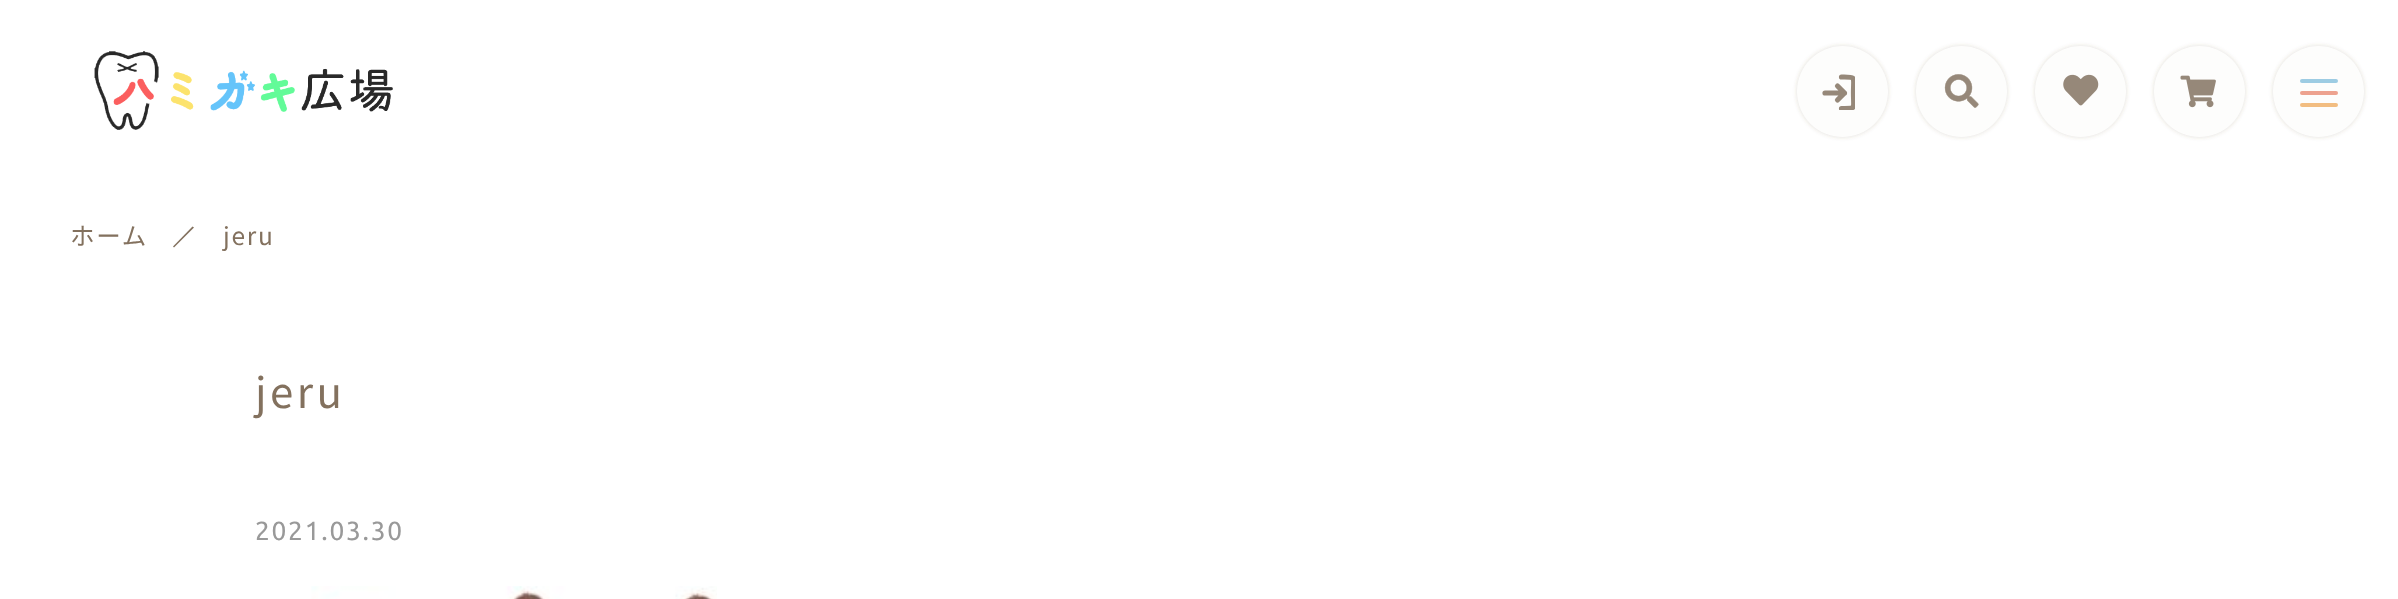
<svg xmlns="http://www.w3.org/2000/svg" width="2398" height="599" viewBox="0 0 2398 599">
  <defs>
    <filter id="blur1" x="-50%" y="-200%" width="200%" height="500%"><feGaussianBlur stdDeviation="2"/></filter>
    <clipPath id="clip1"><rect x="1820" y="74" width="35" height="36"/></clipPath>
  </defs>
  <rect width="100%" height="100%" fill="#ffffff"/>
  <image x="94" y="51" width="299" height="79" href="img1.png"/>
  <rect x="1797" y="46" width="91" height="91" rx="45.5" fill="#6a533a" fill-opacity="0.2" filter="url(#blur1)"/>
  <circle cx="1842.5" cy="91.5" r="45.5" fill="#fdfdfc"/>
  <g clip-path="url(#clip1)">
    <path d="M1841.5 108.5C1856.5 108.5 1853.5 109.5 1853.5 93C1853.5 76 1856.5 77 1841.5 77" fill="none" stroke="#968879" stroke-width="5.2" stroke-linecap="round" stroke-linejoin="round"/>
  </g>
  <path d="M1837.5 100L1844.5 93L1837.5 86M1844.5 93H1825" fill="none" stroke="#968879" stroke-width="5.2" stroke-linecap="round" stroke-linejoin="round"/>
  <rect x="1916" y="46" width="91" height="91" rx="45.5" fill="#6a533a" fill-opacity="0.2" filter="url(#blur1)"/>
  <circle cx="1961.5" cy="91.5" r="45.5" fill="#fdfdfc"/>
  <image x="1944" y="74" width="35" height="34" href="img2.png"/>
  <rect x="2035" y="46" width="91" height="91" rx="45.5" fill="#6a533a" fill-opacity="0.2" filter="url(#blur1)"/>
  <circle cx="2080.5" cy="91.5" r="45.5" fill="#fdfdfc"/>
  <image x="2063" y="74" width="36" height="32" href="img3.png"/>
  <rect x="2154" y="46" width="91" height="91" rx="45.5" fill="#6a533a" fill-opacity="0.2" filter="url(#blur1)"/>
  <circle cx="2199.5" cy="91.5" r="45.5" fill="#fdfdfc"/>
  <image x="2180" y="75" width="36" height="33" href="img4.png"/>
  <rect x="2273" y="46" width="91" height="91" rx="45.5" fill="#6a533a" fill-opacity="0.2" filter="url(#blur1)"/>
  <circle cx="2318.5" cy="91.5" r="45.5" fill="#fdfdfc"/>
  <rect x="2300" y="79" width="38" height="4" rx="2" fill="#9dcce3"/>
  <rect x="2300" y="91" width="38" height="4" rx="2" fill="#eda28f"/>
  <rect x="2300" y="103" width="38" height="4" rx="2" fill="#f2bd81"/>
  <text x="70" y="245" font-family="Noto Sans JP" font-size="24.5" letter-spacing="1.75" fill="#83715e">ホーム</text>
  <path d="M192.5 226.5L194 227.5L174 247.5L173 246.5Z" fill="#83715e"/>
  <text x="223" y="245" font-family="Noto Sans JP" font-size="24.5" letter-spacing="1.75" fill="#83715e">jeru</text>
  <text x="255" y="408" font-family="Noto Sans JP" font-size="42" letter-spacing="3.5" fill="#83715e">jeru</text>
  <text x="255" y="540" font-family="Ubuntu" font-size="26.25" letter-spacing="1.75" fill="#999999">2021.03.30</text>
  <image x="311" y="586" width="406" height="13" href="img5.png"/>
</svg>
